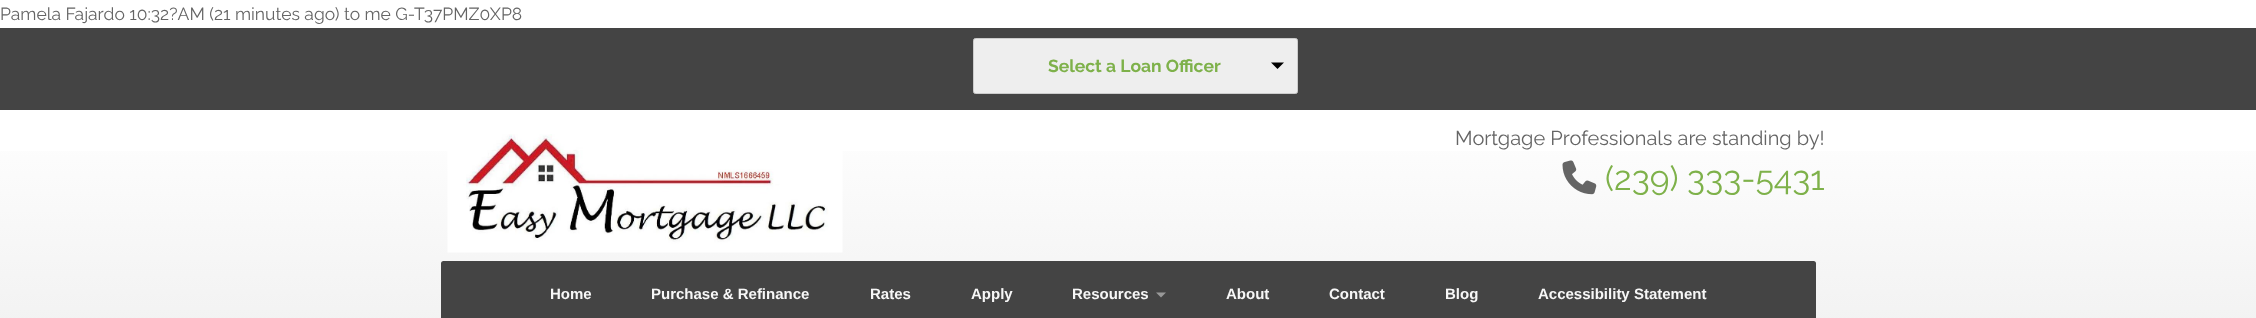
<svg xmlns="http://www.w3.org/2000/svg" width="2256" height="318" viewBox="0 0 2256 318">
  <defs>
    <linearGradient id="g1" gradientUnits="userSpaceOnUse" x1="1128" y1="110" x2="1128" y2="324"><stop offset="0" stop-color="#ffffff"/><stop offset="1" stop-color="#f2f2f2"/></linearGradient>
  </defs>
  <rect width="100%" height="100%" fill="#ffffff"/>
  <text x="0" y="20" font-family="Raleway" font-size="17.5" fill="#656565">Pamela Fajardo 10:32?AM (21 minutes ago) to me G-T37PMZ0XP8</text>
  <rect x="0" y="28" width="2256" height="82" fill="#444444"/>
  <rect x="973.5" y="38.5" width="324" height="55" rx="2" fill="#eeeeee" stroke="#cccccc"/>
  <text x="1048" y="72" font-family="Raleway" font-size="17.5" font-weight="bold" fill="#7eb14a">Select a Loan Officer</text>
  <path d="M1271 62.5H1284L1277.5 69Z" fill="#000000"/>
  <rect x="0" y="151" width="2256" height="167" fill="url(#g1)"/>
  <image x="447" y="134" width="396" height="119" href="img1.png"/>
  <text x="1455" y="145" font-family="Raleway" font-size="20" fill="#656565">Mortgage Professionals are standing by!</text>
  <image x="1562" y="160" width="35" height="35" href="img2.png"/>
  <text x="1605" y="190" font-family="Raleway" font-size="33.75" fill="#7eb14a">(239) 333-5431</text>
  <rect x="441" y="261" width="1375" height="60" rx="2.5" fill="#444444"/>
  <text x="550" y="299" font-family="Liberation Sans" font-size="15" font-weight="bold" fill="#f7f7f7">Home</text>
  <text x="651" y="299" font-family="Liberation Sans" font-size="15" font-weight="bold" fill="#f7f7f7">Purchase &amp; Refinance</text>
  <text x="870" y="299" font-family="Liberation Sans" font-size="15" font-weight="bold" fill="#f7f7f7">Rates</text>
  <text x="971" y="299" font-family="Liberation Sans" font-size="15" font-weight="bold" fill="#f7f7f7">Apply</text>
  <text x="1072" y="299" font-family="Liberation Sans" font-size="15" font-weight="bold" fill="#f7f7f7">Resources</text>
  <path d="M1156 292.5H1166L1161 297.5Z" fill="#999999"/>
  <text x="1226" y="299" font-family="Liberation Sans" font-size="15" font-weight="bold" fill="#f7f7f7">About</text>
  <text x="1329" y="299" font-family="Liberation Sans" font-size="15" font-weight="bold" fill="#f7f7f7">Contact</text>
  <text x="1445" y="299" font-family="Liberation Sans" font-size="15" font-weight="bold" fill="#f7f7f7">Blog</text>
  <text x="1538" y="299" font-family="Liberation Sans" font-size="15" font-weight="bold" fill="#f7f7f7">Accessibility Statement</text>
</svg>
